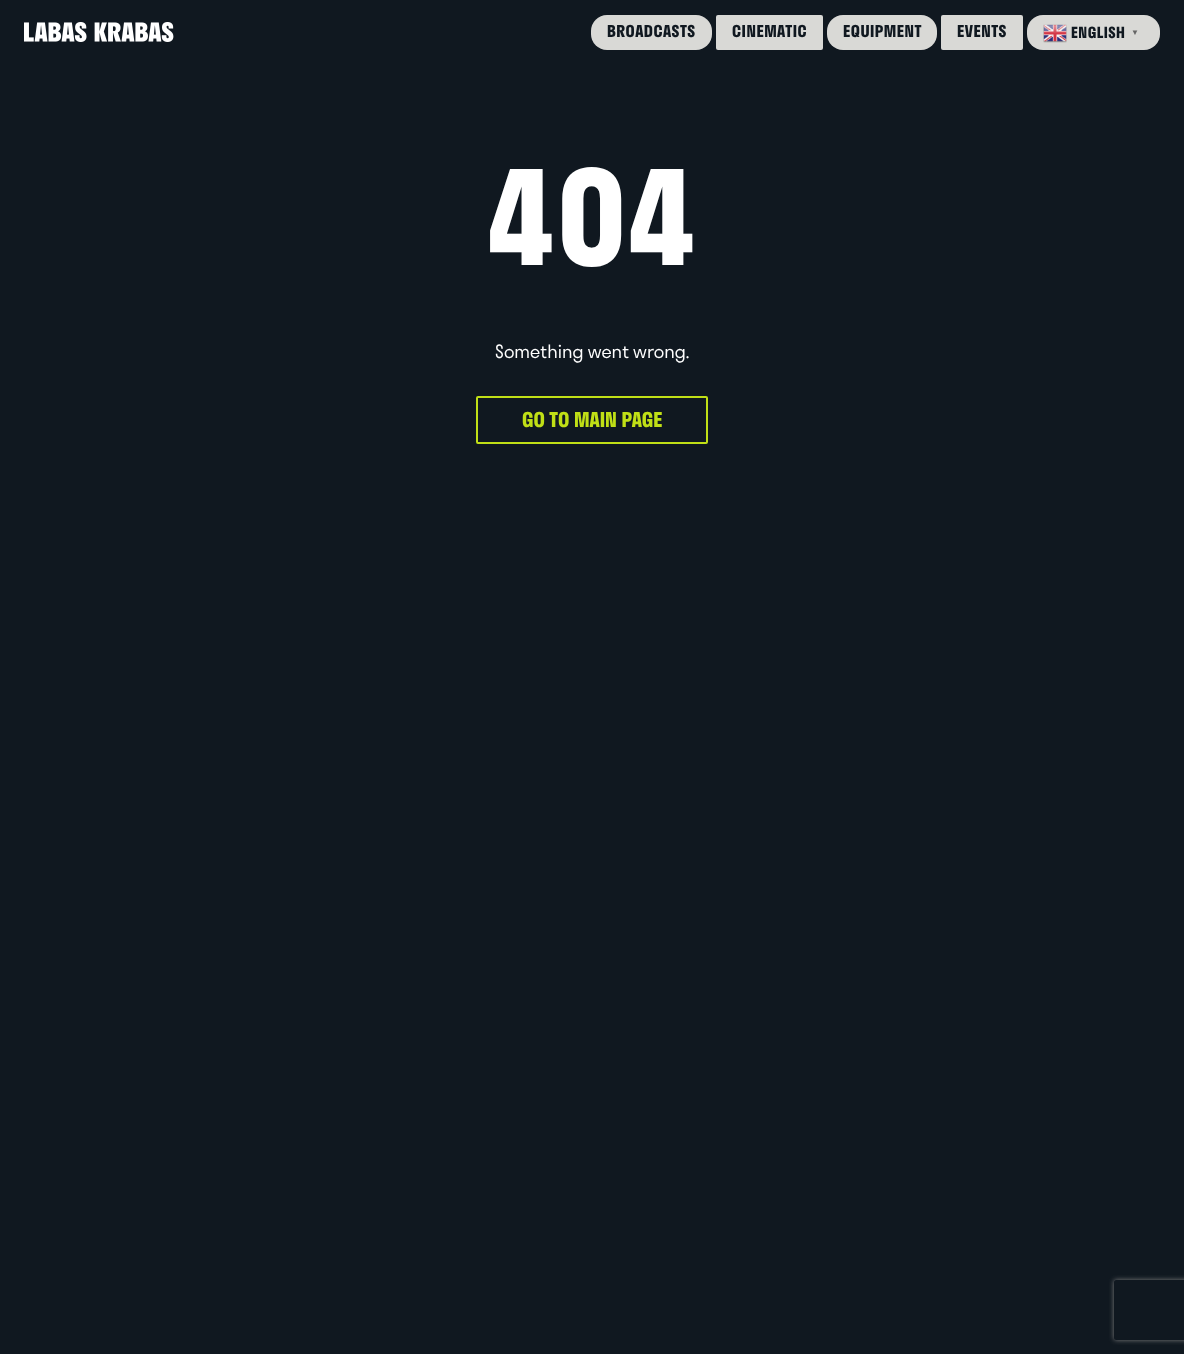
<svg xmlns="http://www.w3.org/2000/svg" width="1184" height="1354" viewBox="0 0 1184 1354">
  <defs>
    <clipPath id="clip1"><path d="M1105 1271H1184V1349H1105ZM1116 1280H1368C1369 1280 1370 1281 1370 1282V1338C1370 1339 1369 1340 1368 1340H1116C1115 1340 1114 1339 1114 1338V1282C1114 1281 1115 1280 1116 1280Z" clip-rule="evenodd"/></clipPath>
    <filter id="blur1" x="-50%" y="-200%" width="200%" height="500%"><feGaussianBlur stdDeviation="2.5"/></filter>
  </defs>
  <rect width="100%" height="100%" fill="#101820"/>
  <image x="24" y="22" width="150" height="20" href="img1.png"/>
  <rect x="591" y="15" width="121" height="35" rx="16" fill="#d9d9d6"/>
  <text x="607" y="37" font-family="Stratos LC" font-size="16" font-weight="bold" letter-spacing="0.5" fill="#101820">BROADCASTS</text>
  <rect x="716" y="15" width="107" height="35" rx="2" fill="#d9d9d6"/>
  <text x="732" y="37" font-family="Stratos LC" font-size="16" font-weight="bold" letter-spacing="0.5" fill="#101820">CINEMATIC</text>
  <rect x="827" y="15" width="110" height="35" rx="16" fill="#d9d9d6"/>
  <text x="843" y="37" font-family="Stratos LC" font-size="16" font-weight="bold" letter-spacing="0.5" fill="#101820">EQUIPMENT</text>
  <rect x="941" y="15" width="82" height="35" rx="2" fill="#d9d9d6"/>
  <text x="957" y="37" font-family="Stratos LC" font-size="16" font-weight="bold" letter-spacing="0.5" fill="#101820">EVENTS</text>
  <rect x="1027" y="15" width="133" height="35" rx="16" fill="#d9d9d6"/>
  <image x="1043" y="24" width="24" height="19" href="img2.png"/>
  <text x="1071" y="38" font-family="Stratos LC" font-size="15" font-weight="bold" letter-spacing="0.5" fill="#101820">ENGLISH</text>
  <text x="1131" y="35" font-family="Liberation Sans" font-size="8" font-weight="bold" letter-spacing="0.5" fill="#666666">▼</text>
  <text x="486" y="265" font-family="Stratos LC" font-size="128" font-weight="bold" fill="#ffffff">404</text>
  <text x="495" y="358" font-family="Stratos LC" font-size="18" font-weight="300" fill="#ffffff">Something went wrong.</text>
  <rect x="477" y="397" width="230" height="46" rx="1" fill="none" stroke="#c0df16" stroke-width="2"/>
  <text x="522" y="427" font-family="Stratos LC" font-size="20" font-weight="bold" fill="#c0df16">GO TO MAIN PAGE</text>
  <g clip-path="url(#clip1)">
    <rect x="1114" y="1280" width="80" height="60" rx="2" fill="#808080" filter="url(#blur1)"/>
  </g>
</svg>
